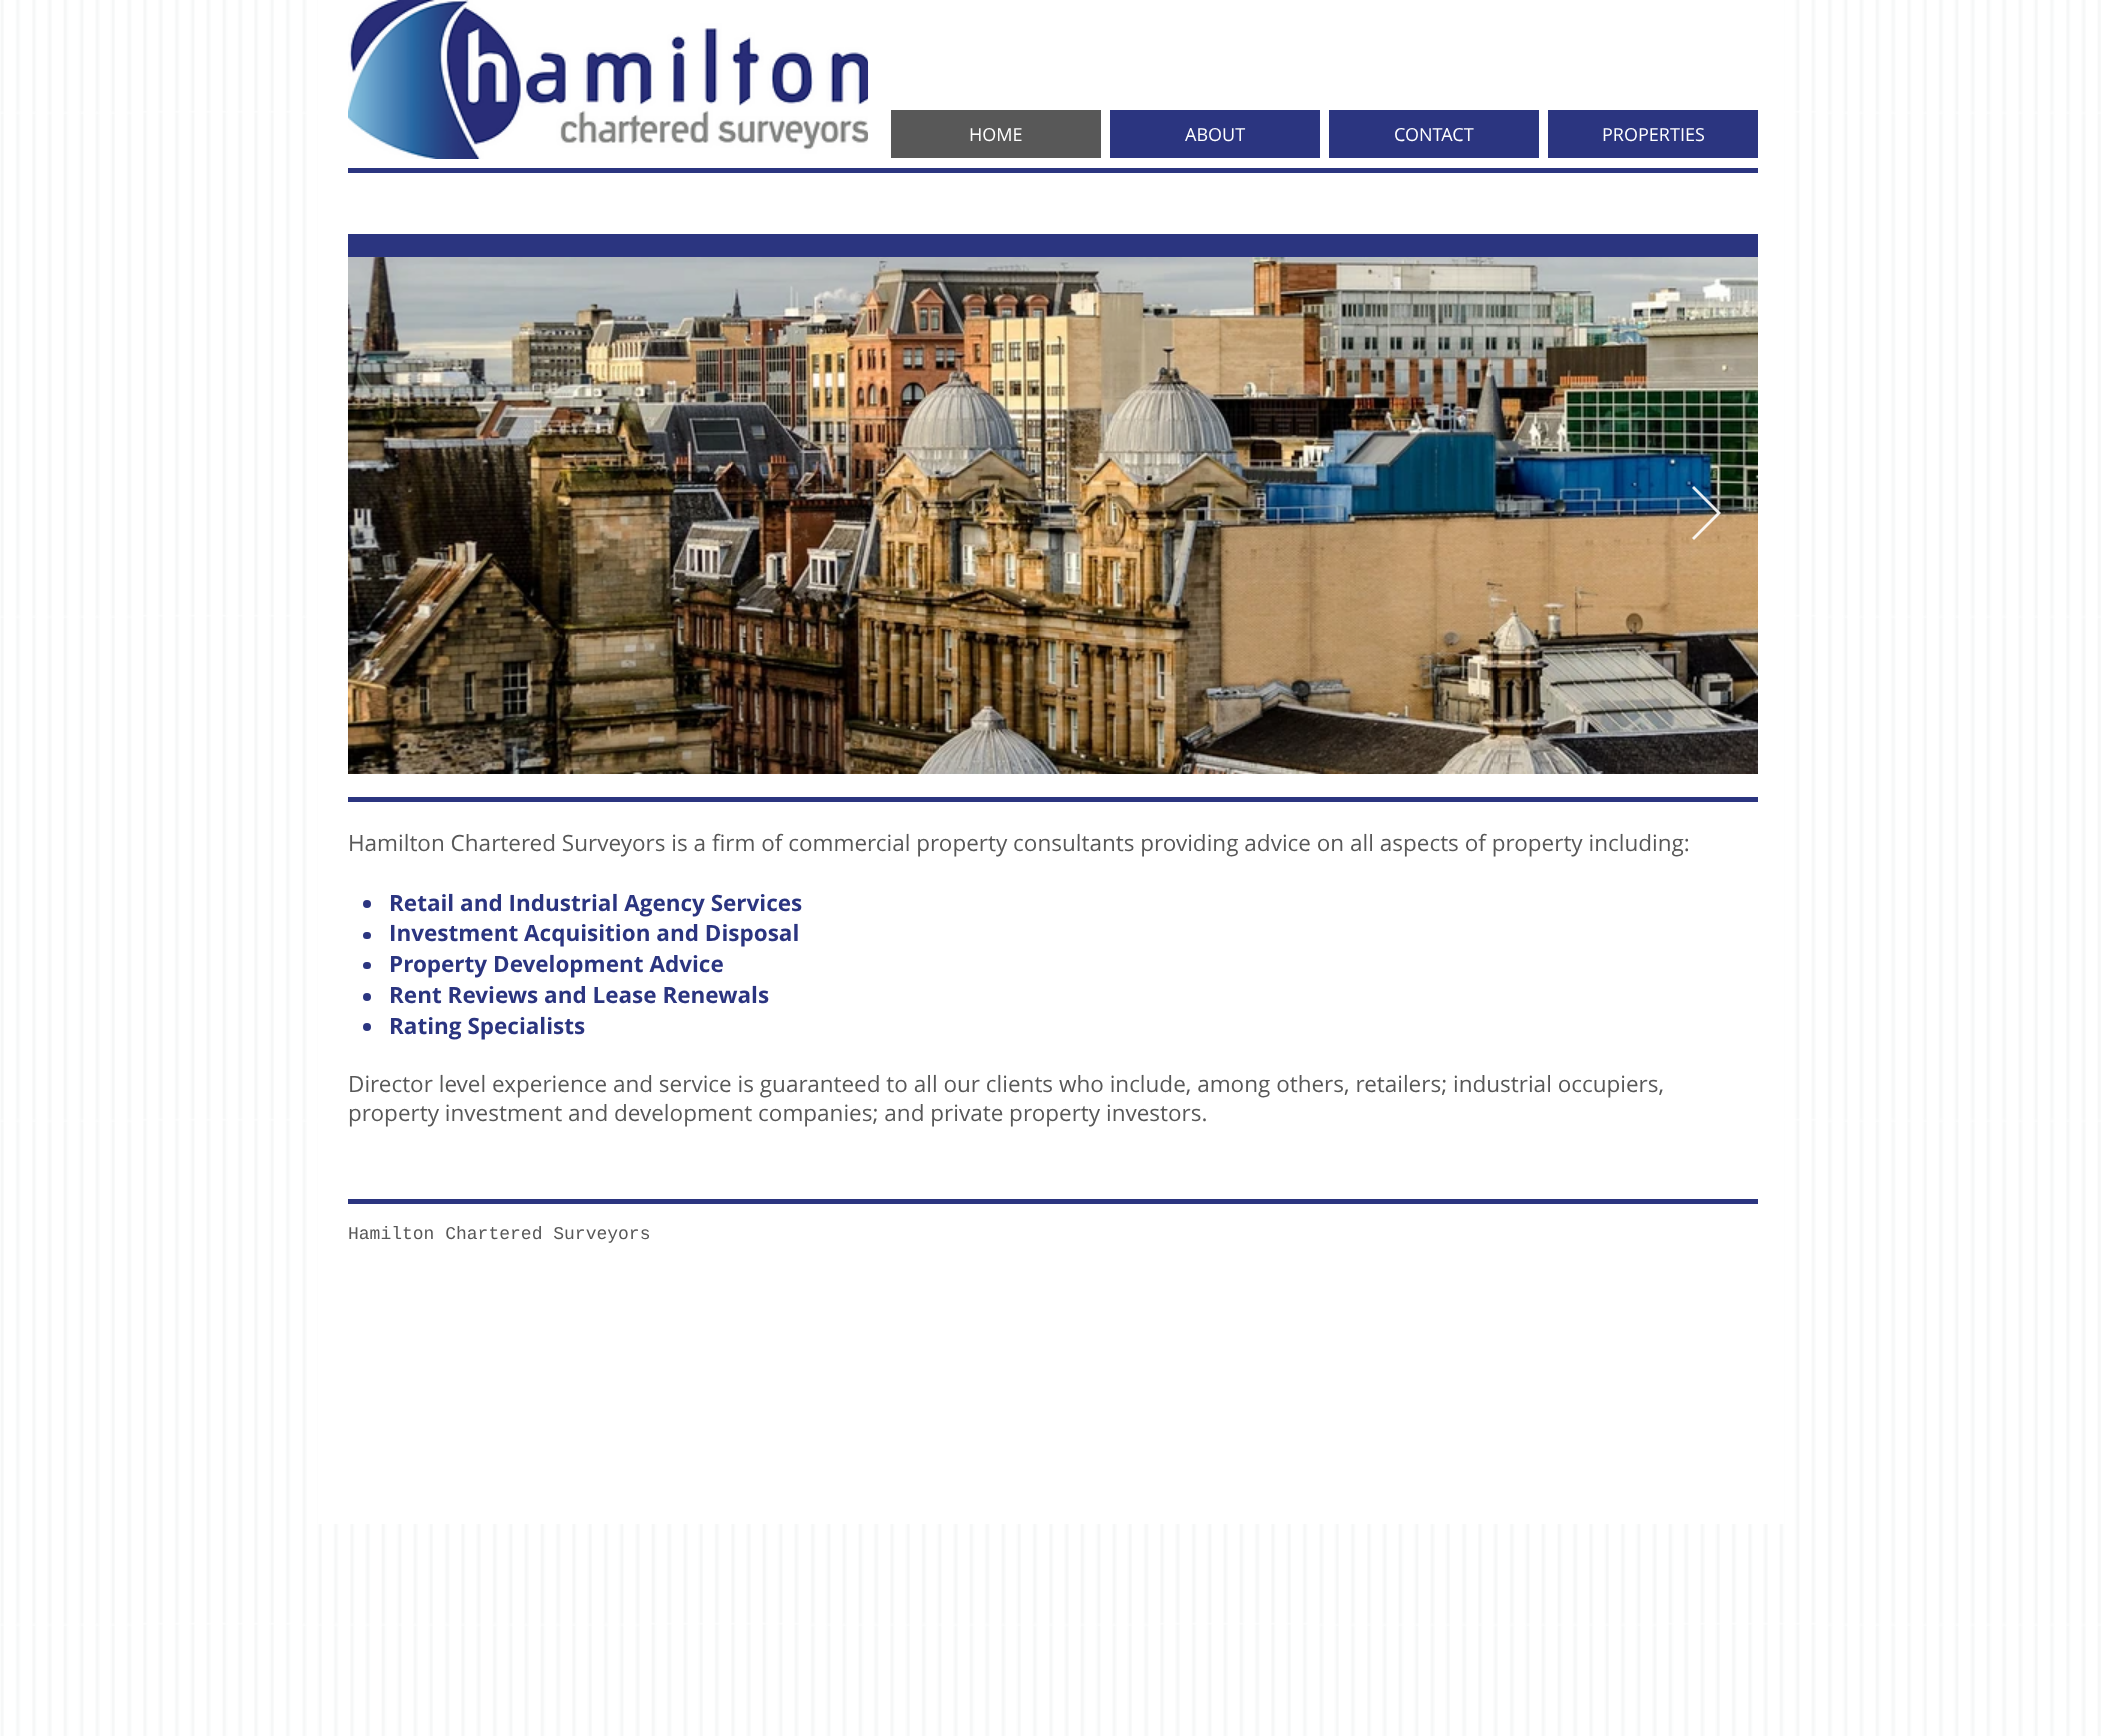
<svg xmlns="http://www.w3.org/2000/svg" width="2105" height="1736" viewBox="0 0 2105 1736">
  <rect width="100%" height="100%" fill="#ffffff"/>
  <image x="0" y="0" width="2101" height="1736" href="img1.png"/>
  <rect x="318" y="0" width="1466" height="1524" fill="#ffffff"/>
  <image x="348" y="0" width="521" height="159" href="img2.png"/>
  <rect x="891" y="110" width="210" height="48" fill="#585858"/>
  <text x="969" y="141" font-family="Open Sans" font-size="18" fill="#ffffff">HOME</text>
  <rect x="1110" y="110" width="210" height="48" fill="#2b3580"/>
  <text x="1185" y="141" font-family="Open Sans" font-size="18" fill="#ffffff">ABOUT</text>
  <rect x="1329" y="110" width="210" height="48" fill="#2b3580"/>
  <text x="1394" y="141" font-family="Open Sans" font-size="18" fill="#ffffff">CONTACT</text>
  <rect x="1548" y="110" width="210" height="48" fill="#2b3580"/>
  <text x="1602" y="141" font-family="Open Sans" font-size="18" fill="#ffffff">PROPERTIES</text>
  <rect x="348" y="168" width="1410" height="5" fill="#2b3580"/>
  <rect x="348" y="234" width="1410" height="23" fill="#2b3580"/>
  <image x="348" y="257" width="1410" height="517" href="img3.png"/>
  <path d="M1692 488L1694 486L1721 513L1694 540L1692 538L1717 513Z" fill="#ffffff" fill-opacity="0.9"/>
  <rect x="348" y="797" width="1410" height="5" fill="#2b3580"/>
  <text x="348" y="851" font-family="Open Sans" font-size="22.5" fill="#585858">Hamilton Chartered Surveyors is a firm of commercial property consultants providing advice on all aspects of property including:</text>
  <circle cx="367" cy="904" r="4" fill="#2b3580"/>
  <text x="389" y="911" font-family="Open Sans" font-size="22.5" font-weight="bold" fill="#2b3580">Retail and Industrial Agency Services</text>
  <rect x="363" y="932" width="8" height="7" rx="3.5" fill="#2b3580"/>
  <text x="389" y="941" font-family="Open Sans" font-size="22.5" font-weight="bold" fill="#2b3580">Investment Acquisition and Disposal</text>
  <rect x="363" y="962" width="8" height="7" rx="3.5" fill="#2b3580"/>
  <text x="389" y="972" font-family="Open Sans" font-size="22.5" font-weight="bold" fill="#2b3580">Property Development Advice</text>
  <circle cx="367" cy="997" r="4" fill="#2b3580"/>
  <text x="389" y="1003" font-family="Open Sans" font-size="22.5" font-weight="bold" fill="#2b3580">Rent Reviews and Lease Renewals</text>
  <circle cx="367" cy="1027" r="4" fill="#2b3580"/>
  <text x="389" y="1034" font-family="Open Sans" font-size="22.5" font-weight="bold" fill="#2b3580">Rating Specialists</text>
  <text x="348" y="1092" font-family="Open Sans" font-size="22.5" fill="#585858">Director level experience and service is guaranteed to all our clients who include, among others, retailers; industrial occupiers,</text>
  <text x="348" y="1121" font-family="Open Sans" font-size="22.5" fill="#585858">property investment and development companies; and private property investors.</text>
  <rect x="348" y="1199" width="1410" height="5" fill="#2b3580"/>
  <text x="348" y="1239" font-family="Liberation Mono" font-size="18" fill="#585858">Hamilton Chartered Surveyors</text>
</svg>
